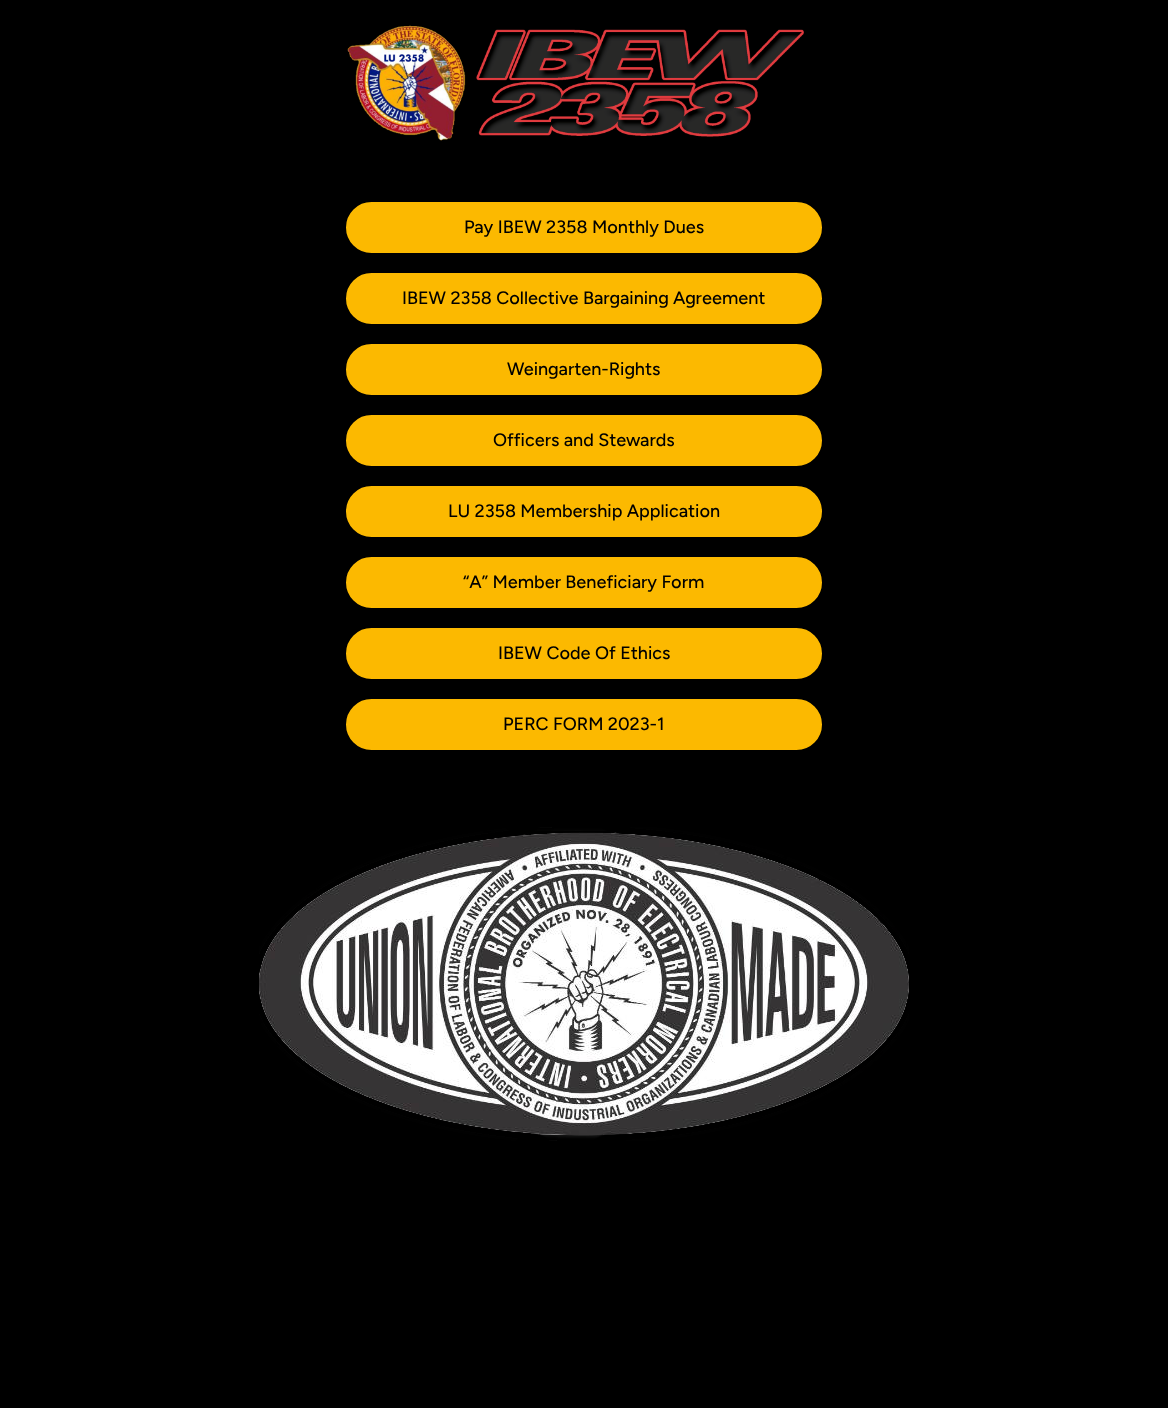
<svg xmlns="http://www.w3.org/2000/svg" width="1168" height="1408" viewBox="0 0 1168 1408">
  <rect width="100%" height="100%" fill="#000000"/>
  <image x="347" y="25" width="457" height="116" href="img1.png"/>
  <rect x="345" y="201" width="478" height="53" rx="26.5" fill="#fcb900" stroke="#000000" stroke-width="2"/>
  <text x="464" y="233" font-family="Figtree" font-size="18" font-weight="500" fill="#000000">Pay IBEW 2358 Monthly Dues</text>
  <rect x="345" y="272" width="478" height="53" rx="26.5" fill="#fcb900" stroke="#000000" stroke-width="2"/>
  <text x="402" y="304" font-family="Figtree" font-size="18" font-weight="500" fill="#000000">IBEW 2358 Collective Bargaining Agreement</text>
  <rect x="345" y="343" width="478" height="53" rx="26.5" fill="#fcb900" stroke="#000000" stroke-width="2"/>
  <text x="507" y="375" font-family="Figtree" font-size="18" font-weight="500" fill="#000000">Weingarten-Rights</text>
  <rect x="345" y="414" width="478" height="53" rx="26.5" fill="#fcb900" stroke="#000000" stroke-width="2"/>
  <text x="493" y="446" font-family="Figtree" font-size="18" font-weight="500" fill="#000000">Officers and Stewards</text>
  <rect x="345" y="485" width="478" height="53" rx="26.5" fill="#fcb900" stroke="#000000" stroke-width="2"/>
  <text x="448" y="517" font-family="Figtree" font-size="18" font-weight="500" fill="#000000">LU 2358 Membership Application</text>
  <rect x="345" y="556" width="478" height="53" rx="26.5" fill="#fcb900" stroke="#000000" stroke-width="2"/>
  <text x="463" y="588" font-family="Figtree" font-size="18" font-weight="500" fill="#000000">“A” Member Beneficiary Form</text>
  <rect x="345" y="627" width="478" height="53" rx="26.5" fill="#fcb900" stroke="#000000" stroke-width="2"/>
  <text x="498" y="659" font-family="Figtree" font-size="18" font-weight="500" fill="#000000">IBEW Code Of Ethics</text>
  <rect x="345" y="698" width="478" height="53" rx="26.5" fill="#fcb900" stroke="#000000" stroke-width="2"/>
  <text x="503" y="730" font-family="Figtree" font-size="18" font-weight="500" fill="#000000">PERC FORM 2023-1</text>
  <image x="259" y="827" width="650" height="314" href="img2.png"/>
</svg>
